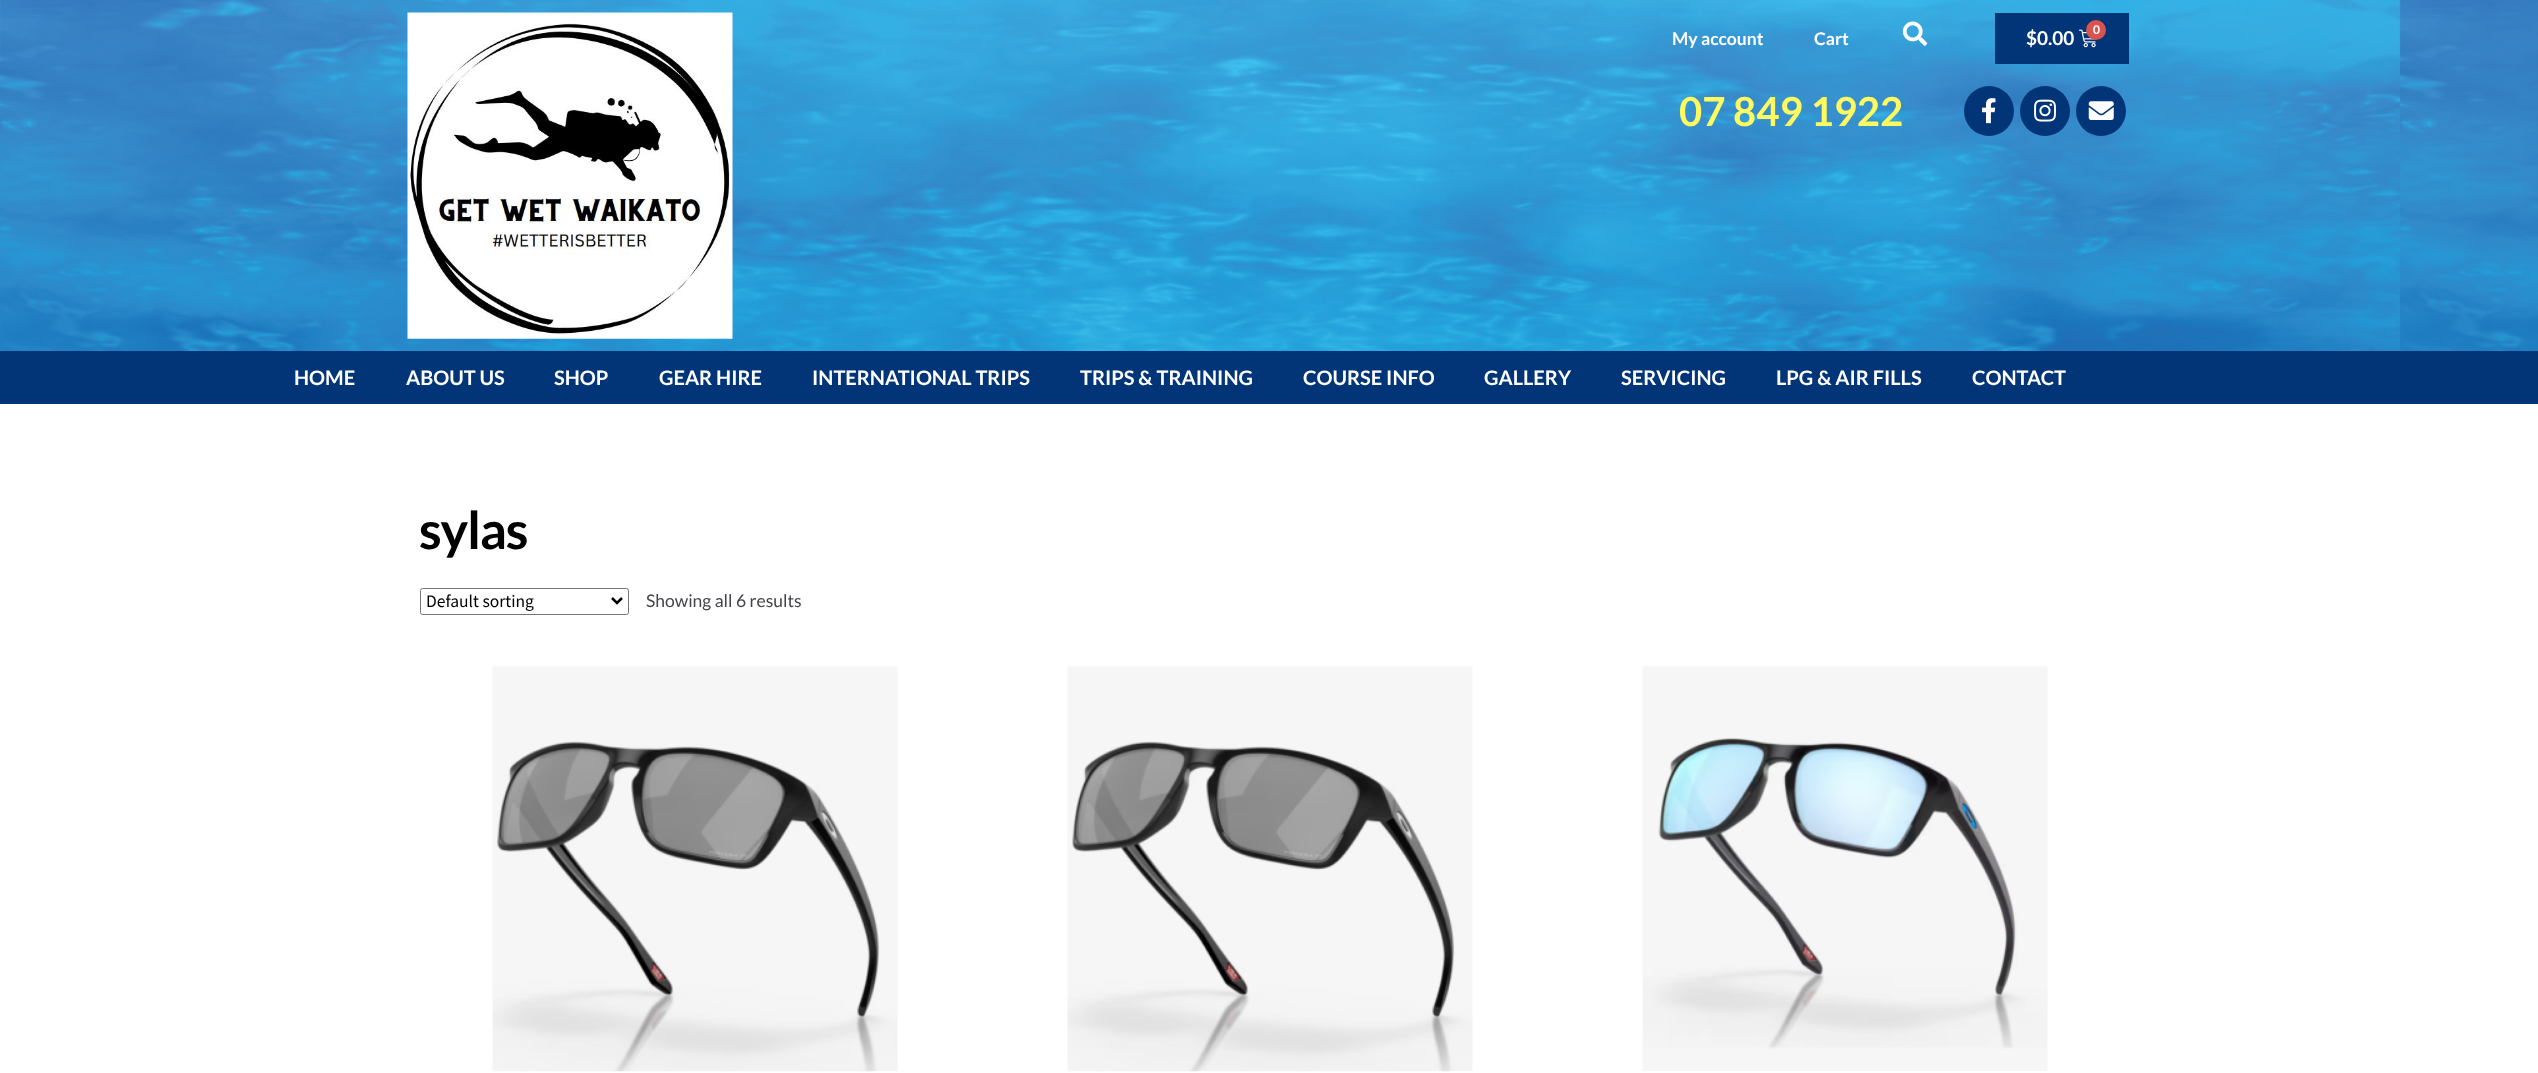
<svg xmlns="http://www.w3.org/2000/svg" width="2538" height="1073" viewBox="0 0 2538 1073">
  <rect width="100%" height="100%" fill="#ffffff"/>
  <image x="0" y="0" width="2538" height="351" href="img1.png"/>
  <image x="407" y="12" width="326" height="327" href="img2.png"/>
  <text x="1672" y="45" font-family="Lato" font-size="17.5" font-weight="bold" fill="#ffffff">My account</text>
  <text x="1814" y="45" font-family="Lato" font-size="17.5" font-weight="bold" fill="#ffffff">Cart</text>
  <image x="1902" y="21" width="26" height="25" href="img3.png"/>
  <rect x="1995" y="13" width="134" height="51" fill="#013578"/>
  <text x="2026" y="45" font-family="Lato" font-size="19" font-weight="bold" fill="#ffffff">$0.00</text>
  <image x="2079" y="29" width="17" height="19" href="img4.png"/>
  <circle cx="2096" cy="30" r="10" fill="#d9534f"/>
  <text x="2093" y="34" font-family="Lato" font-size="12" font-weight="bold" fill="#ffffff">0</text>
  <text x="1679" y="126" font-family="Lato" font-size="40" font-weight="bold" fill="#fffa5d">07 849 1922</text>
  <circle cx="1989" cy="111" r="25" fill="#013578"/>
  <image x="1982" y="98" width="14" height="26" href="img5.png"/>
  <circle cx="2045" cy="111" r="25" fill="#013578"/>
  <image x="2034" y="99" width="22" height="23" href="img6.png"/>
  <circle cx="2101" cy="111" r="25" fill="#013578"/>
  <image x="2088" y="101" width="26" height="19" href="img7.png"/>
  <rect x="0" y="351" width="2538" height="53" fill="#013578"/>
  <text x="294" y="385" font-family="Lato" font-size="20" font-weight="bold" fill="#ffffff">HOME</text>
  <text x="406" y="385" font-family="Lato" font-size="20" font-weight="bold" fill="#ffffff">ABOUT US</text>
  <text x="554" y="385" font-family="Lato" font-size="20" font-weight="bold" fill="#ffffff">SHOP</text>
  <text x="659" y="385" font-family="Lato" font-size="20" font-weight="bold" fill="#ffffff">GEAR HIRE</text>
  <text x="812" y="385" font-family="Lato" font-size="20" font-weight="bold" fill="#ffffff">INTERNATIONAL TRIPS</text>
  <text x="1080" y="385" font-family="Lato" font-size="20" font-weight="bold" fill="#ffffff">TRIPS &amp; TRAINING</text>
  <text x="1303" y="385" font-family="Lato" font-size="20" font-weight="bold" fill="#ffffff">COURSE INFO</text>
  <text x="1484" y="385" font-family="Lato" font-size="20" font-weight="bold" fill="#ffffff">GALLERY</text>
  <text x="1621" y="385" font-family="Lato" font-size="20" font-weight="bold" fill="#ffffff">SERVICING</text>
  <text x="1776" y="385" font-family="Lato" font-size="20" font-weight="bold" fill="#ffffff">LPG &amp; AIR FILLS</text>
  <text x="1972" y="385" font-family="Lato" font-size="20" font-weight="bold" fill="#ffffff">CONTACT</text>
  <text x="419" y="549" font-family="Lato" font-size="52" font-weight="bold" letter-spacing="-1.25" fill="#000000">sylas</text>
  <rect x="420.5" y="588.5" width="208" height="26" rx="2" fill="none" stroke="#767676"/>
  <path d="M612 598L617 603L622 598" fill="none" stroke="#000000" stroke-width="2.5"/>
  <text x="426" y="607" font-family="Source Sans Pro" font-size="17.5" fill="#000000">Default sorting</text>
  <text x="646" y="607" font-family="Lato" font-size="17.5" fill="#43454b">Showing all 6 results</text>
  <image x="492" y="666" width="406" height="406" href="img8.png"/>
  <image x="1067" y="666" width="406" height="406" href="img9.png"/>
  <image x="1642" y="666" width="406" height="405" href="img10.png"/>
</svg>
